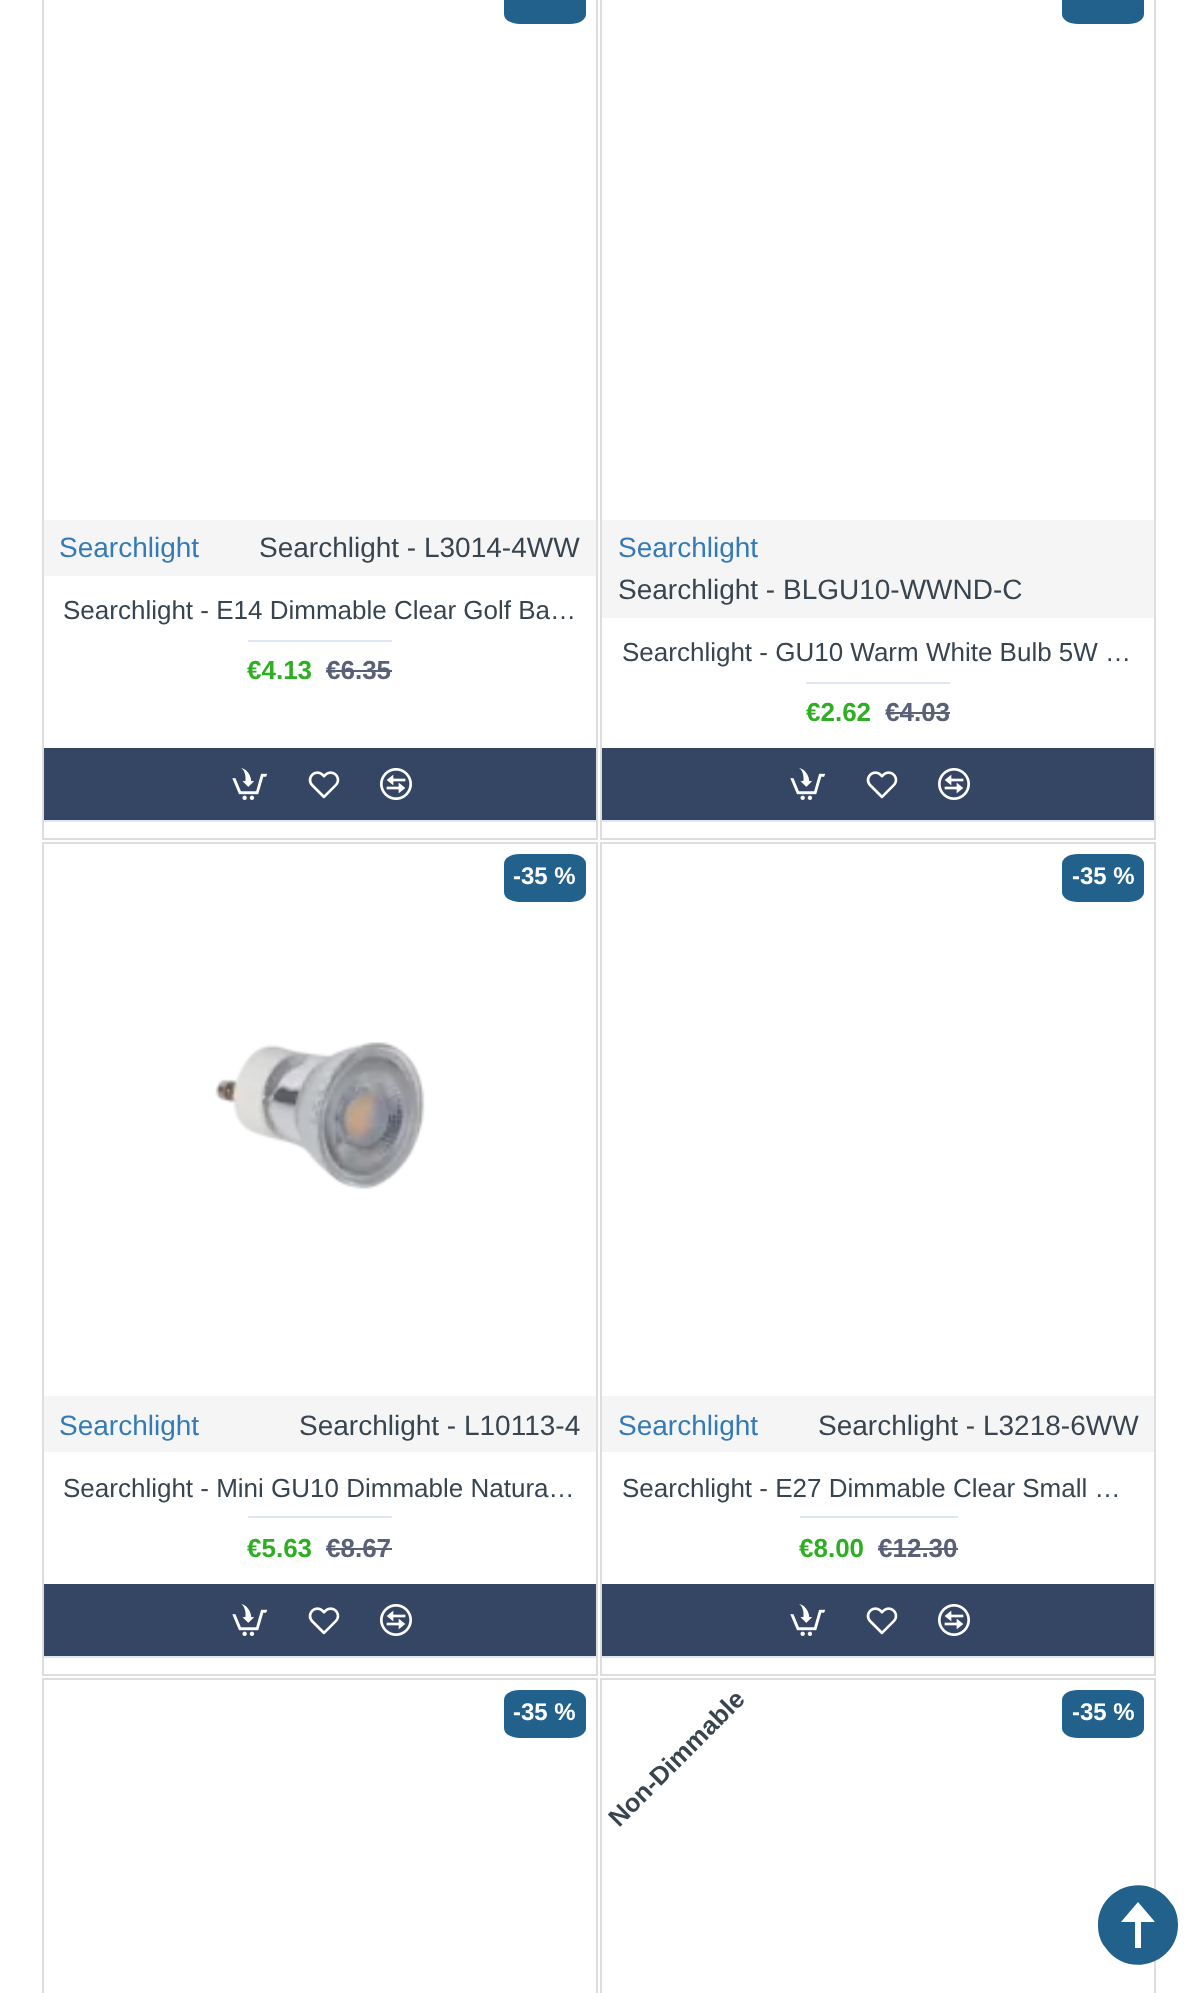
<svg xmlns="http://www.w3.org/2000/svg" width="1197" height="1993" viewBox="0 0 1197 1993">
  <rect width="100%" height="100%" fill="#ffffff"/>
  <rect x="43" y="-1" width="554" height="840" fill="none" stroke="#dddddd" stroke-width="2"/>
  <path d="M520-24H570C579-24 586-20 586-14V14C586 20 579 24 570 24H520C511 24 504 20 504 14V-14C504-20 511-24 520-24Z" fill="#21618c"/>
  <rect x="44" y="520" width="552" height="56" fill="#f5f5f5"/>
  <text x="59" y="557" font-family="Liberation Sans" font-size="28" fill="#337ab7">Searchlight</text>
  <text x="259" y="557" font-family="Liberation Sans" font-size="28" fill="#38444f">Searchlight - L3014-4WW</text>
  <text x="63" y="619" font-family="Liberation Sans" font-size="26" fill="#38444f">Searchlight - E14 Dimmable Clear Golf Ba…</text>
  <rect x="248" y="640" width="144" height="2" fill="#dfe7f7"/>
  <text x="247" y="679" font-family="Liberation Sans" font-size="26" font-weight="bold" fill="#2eaf23">€4.13</text>
  <text x="326" y="679" font-family="Liberation Sans" font-size="26" font-weight="bold" fill="#596077">€6.35</text>
  <rect x="326" y="670" width="66" height="2" fill="#596077"/>
  <rect x="44" y="748" width="552" height="72" fill="#354564"/>
  <image x="232" y="768" width="36" height="32" href="img1.png"/>
  <image x="308" y="771" width="32" height="28" href="img2.png"/>
  <image x="380" y="768" width="32" height="32" href="img3.png"/>
  <rect x="44" y="820" width="552" height="2" fill="#dfe7f7"/>
  <rect x="601" y="-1" width="554" height="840" fill="none" stroke="#dddddd" stroke-width="2"/>
  <path d="M1078-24H1128C1137-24 1144-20 1144-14V14C1144 20 1137 24 1128 24H1078C1069 24 1062 20 1062 14V-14C1062-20 1069-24 1078-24Z" fill="#21618c"/>
  <rect x="602" y="520" width="552" height="98" fill="#f5f5f5"/>
  <text x="618" y="557" font-family="Liberation Sans" font-size="28" fill="#337ab7">Searchlight</text>
  <text x="618" y="599" font-family="Liberation Sans" font-size="28" fill="#38444f">Searchlight - BLGU10-WWND-C</text>
  <text x="622" y="661" font-family="Liberation Sans" font-size="26" fill="#38444f">Searchlight - GU10 Warm White Bulb 5W …</text>
  <rect x="806" y="682" width="144" height="2" fill="#dfe7f7"/>
  <text x="806" y="721" font-family="Liberation Sans" font-size="26" font-weight="bold" fill="#2eaf23">€2.62</text>
  <text x="885" y="721" font-family="Liberation Sans" font-size="26" font-weight="bold" fill="#596077">€4.03</text>
  <rect x="886" y="712" width="64" height="2" fill="#596077"/>
  <rect x="602" y="748" width="552" height="72" fill="#354564"/>
  <image x="790" y="768" width="36" height="32" href="img1.png"/>
  <image x="866" y="771" width="32" height="28" href="img2.png"/>
  <image x="938" y="768" width="32" height="32" href="img3.png"/>
  <rect x="602" y="820" width="552" height="2" fill="#dfe7f7"/>
  <rect x="43" y="843" width="554" height="832" fill="none" stroke="#dddddd" stroke-width="2"/>
  <path d="M520 854H570C579 854 586 858 586 864V892C586 898 579 902 570 902H520C511 902 504 898 504 892V864C504 858 511 854 520 854Z" fill="#21618c"/>
  <text x="513" y="884" font-family="Liberation Sans" font-size="24" font-weight="bold" fill="#ffffff">-35 %</text>
  <image x="215" y="1042" width="210" height="147" href="img4.png"/>
  <rect x="44" y="1396" width="552" height="56" fill="#f5f5f5"/>
  <text x="59" y="1435" font-family="Liberation Sans" font-size="28" fill="#337ab7">Searchlight</text>
  <text x="299" y="1435" font-family="Liberation Sans" font-size="28" fill="#38444f">Searchlight - L10113-4</text>
  <text x="63" y="1497" font-family="Liberation Sans" font-size="26" fill="#38444f">Searchlight - Mini GU10 Dimmable Natura…</text>
  <rect x="248" y="1516" width="144" height="2" fill="#dfe7f7"/>
  <text x="247" y="1557" font-family="Liberation Sans" font-size="26" font-weight="bold" fill="#2eaf23">€5.63</text>
  <text x="326" y="1557" font-family="Liberation Sans" font-size="26" font-weight="bold" fill="#596077">€8.67</text>
  <rect x="326" y="1548" width="66" height="2" fill="#596077"/>
  <rect x="44" y="1584" width="552" height="72" fill="#354564"/>
  <image x="232" y="1604" width="36" height="32" href="img1.png"/>
  <image x="308" y="1607" width="32" height="28" href="img2.png"/>
  <image x="380" y="1604" width="32" height="32" href="img3.png"/>
  <rect x="44" y="1656" width="552" height="2" fill="#dfe7f7"/>
  <rect x="601" y="843" width="554" height="832" fill="none" stroke="#dddddd" stroke-width="2"/>
  <path d="M1078 854H1128C1137 854 1144 858 1144 864V892C1144 898 1137 902 1128 902H1078C1069 902 1062 898 1062 892V864C1062 858 1069 854 1078 854Z" fill="#21618c"/>
  <text x="1072" y="884" font-family="Liberation Sans" font-size="24" font-weight="bold" fill="#ffffff">-35 %</text>
  <rect x="602" y="1396" width="552" height="56" fill="#f5f5f5"/>
  <text x="618" y="1435" font-family="Liberation Sans" font-size="28" fill="#337ab7">Searchlight</text>
  <text x="818" y="1435" font-family="Liberation Sans" font-size="28" fill="#38444f">Searchlight - L3218-6WW</text>
  <text x="622" y="1497" font-family="Liberation Sans" font-size="26" fill="#38444f">Searchlight - E27 Dimmable Clear Small …</text>
  <rect x="800" y="1516" width="158" height="2" fill="#dfe7f7"/>
  <text x="799" y="1557" font-family="Liberation Sans" font-size="26" font-weight="bold" fill="#2eaf23">€8.00</text>
  <text x="878" y="1557" font-family="Liberation Sans" font-size="26" font-weight="bold" fill="#596077">€12.30</text>
  <rect x="878" y="1548" width="80" height="2" fill="#596077"/>
  <rect x="602" y="1584" width="552" height="72" fill="#354564"/>
  <image x="790" y="1604" width="36" height="32" href="img1.png"/>
  <image x="866" y="1607" width="32" height="28" href="img2.png"/>
  <image x="938" y="1604" width="32" height="32" href="img3.png"/>
  <rect x="602" y="1656" width="552" height="2" fill="#dfe7f7"/>
  <rect x="43" y="1679" width="554" height="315" fill="none" stroke="#dddddd" stroke-width="2"/>
  <path d="M520 1690H570C579 1690 586 1694 586 1700V1728C586 1734 579 1738 570 1738H520C511 1738 504 1734 504 1728V1700C504 1694 511 1690 520 1690Z" fill="#21618c"/>
  <text x="513" y="1720" font-family="Liberation Sans" font-size="24" font-weight="bold" fill="#ffffff">-35 %</text>
  <rect x="601" y="1679" width="554" height="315" fill="none" stroke="#dddddd" stroke-width="2"/>
  <text x="619" y="1828" transform="rotate(-45 619 1828)" font-family="Liberation Sans" font-size="25.5" font-weight="bold" fill="#38444f">Non-Dimmable</text>
  <path d="M1078 1690H1128C1137 1690 1144 1694 1144 1700V1728C1144 1734 1137 1738 1128 1738H1078C1069 1738 1062 1734 1062 1728V1700C1062 1694 1069 1690 1078 1690Z" fill="#21618c"/>
  <text x="1072" y="1720" font-family="Liberation Sans" font-size="24" font-weight="bold" fill="#ffffff">-35 %</text>
  <path d="M1098 1925C1098 1933 1100 1941 1105 1947C1127 1980 1178 1964 1178 1925C1178 1917 1176 1909 1171 1903C1149 1870 1098 1886 1098 1925ZM1155 1922H1141V1948H1135V1922H1121L1138 1902Z" fill="#21618c"/>
</svg>
